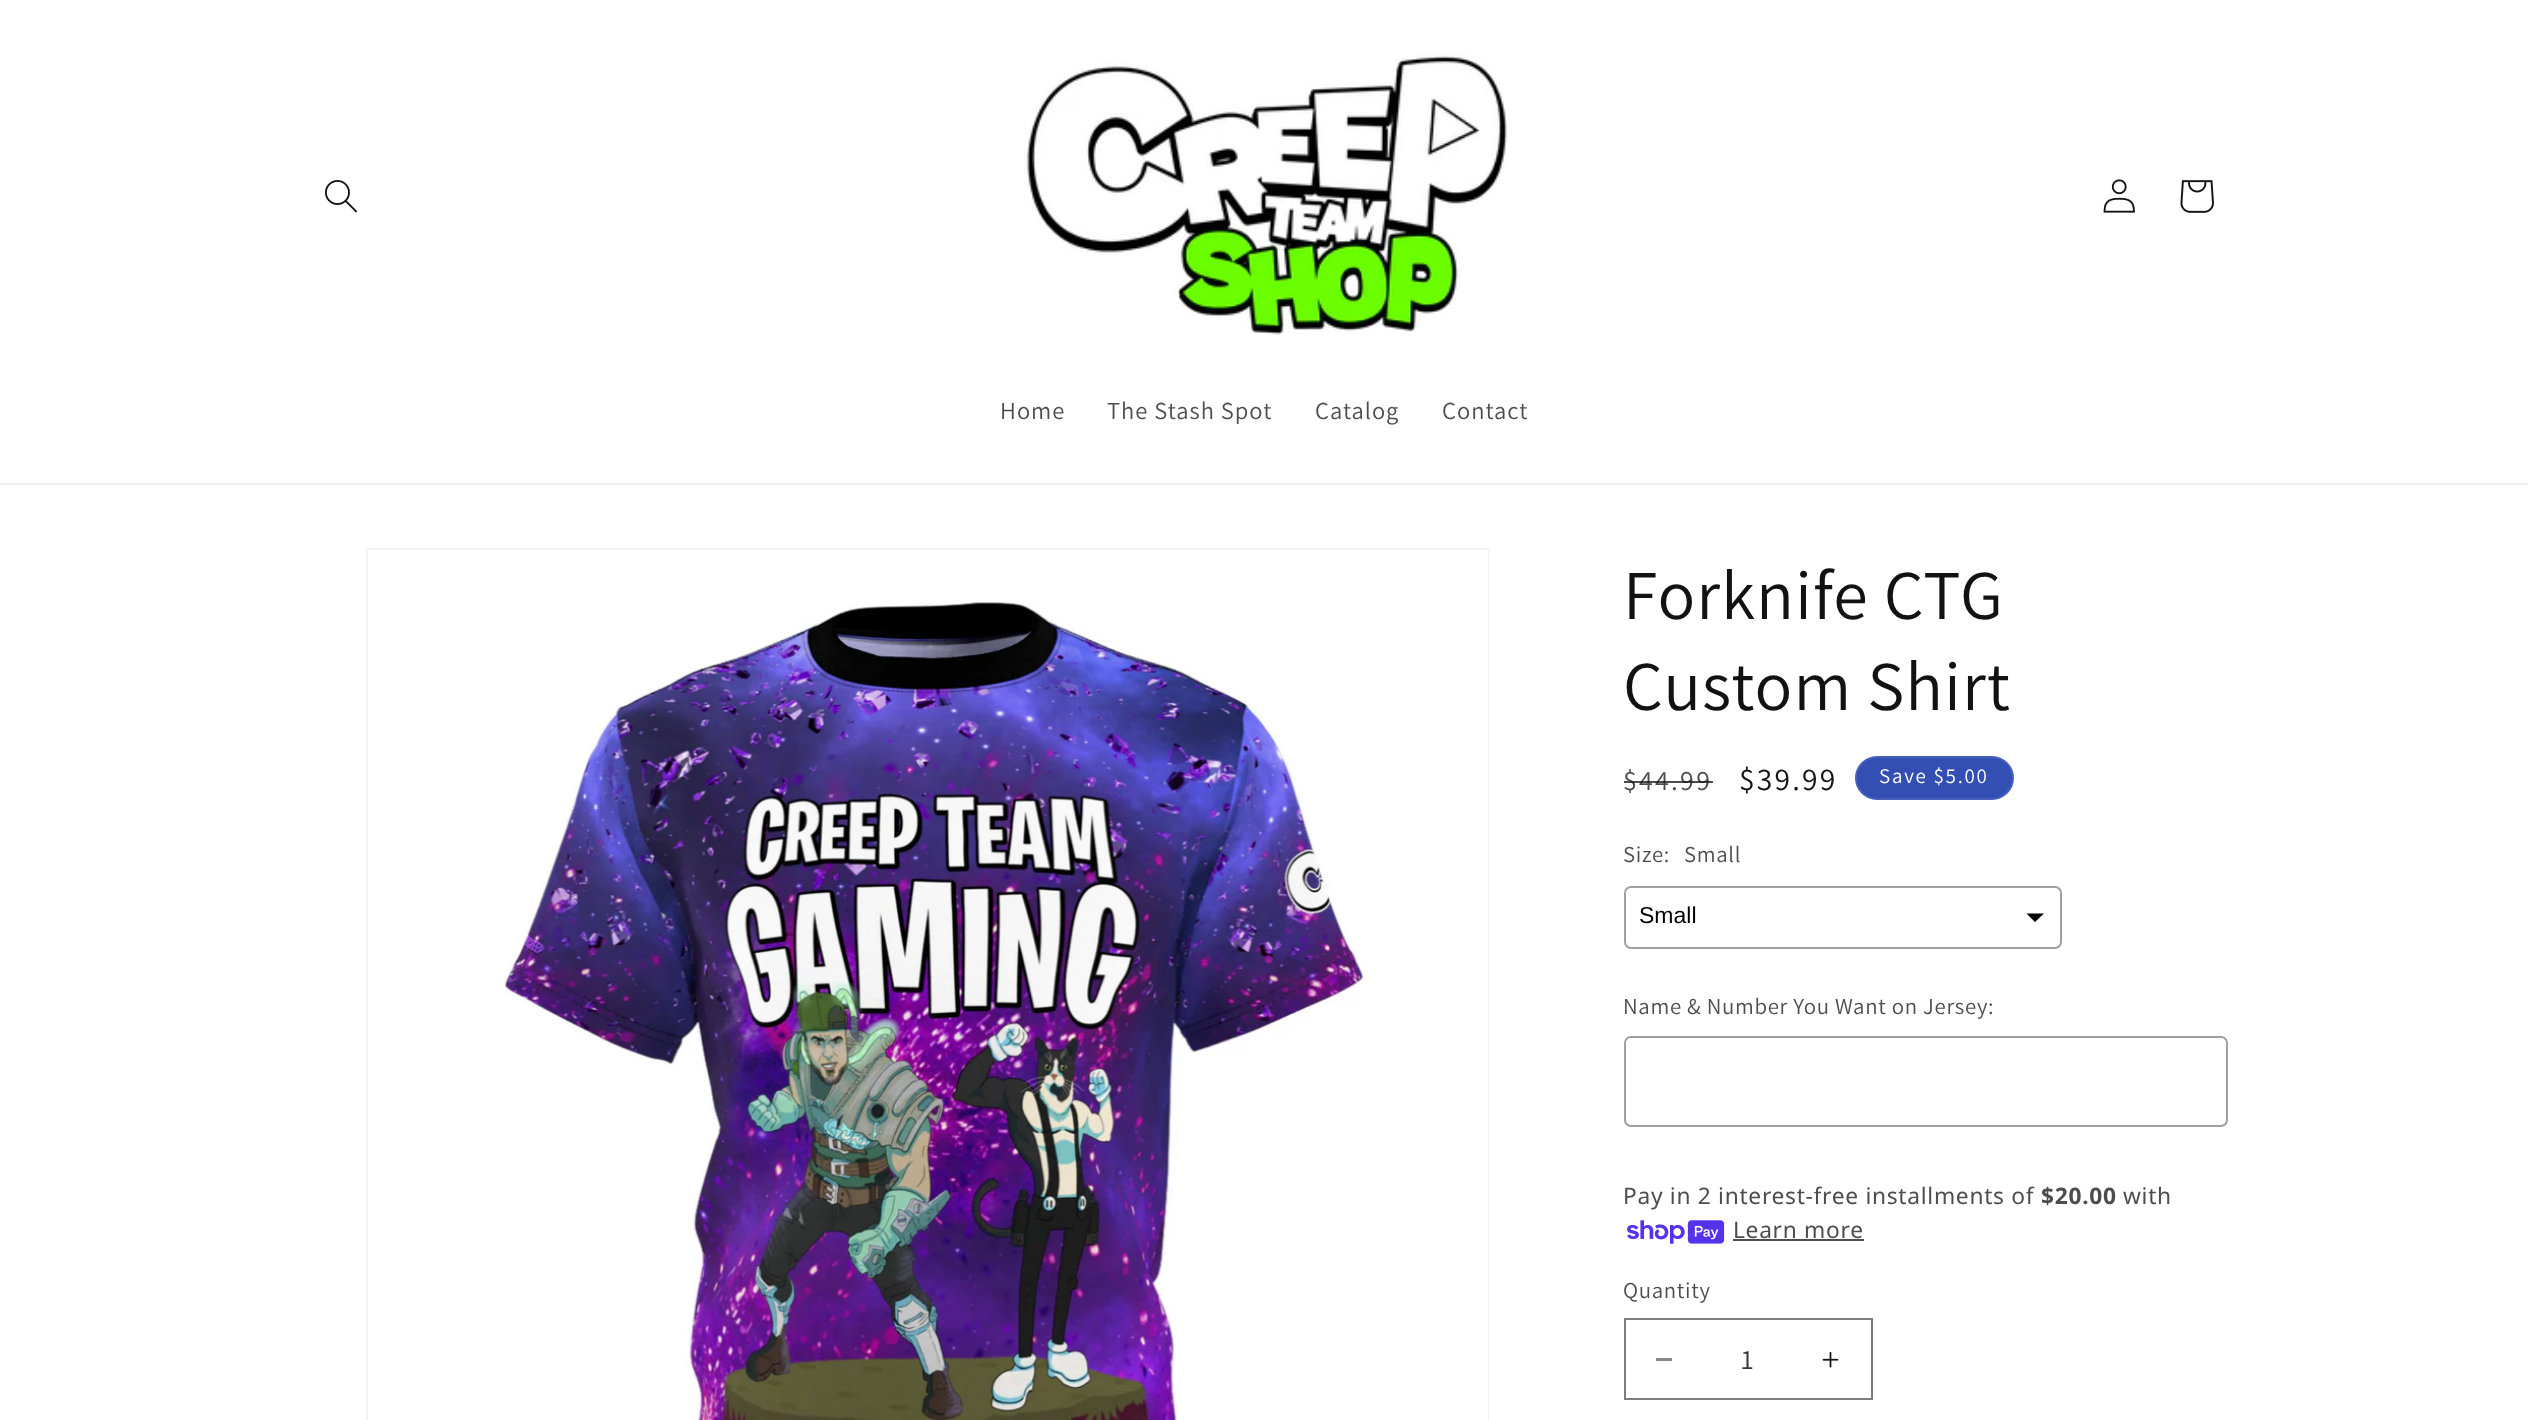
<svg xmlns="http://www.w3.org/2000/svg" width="2528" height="1420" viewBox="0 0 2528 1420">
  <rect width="100%" height="100%" fill="#ffffff"/>
  <rect x="0" y="483" width="2528" height="2" fill="#ececec"/>
  <image x="325" y="180" width="32" height="33" href="img1.png"/>
  <image x="1024" y="53" width="484" height="282" href="img2.png"/>
  <image x="2103" y="179" width="32" height="34" href="img3.png"/>
  <image x="2180" y="180" width="34" height="33" href="img4.png"/>
  <text x="1000" y="419" font-family="Assistant" font-size="24.5" letter-spacing="1" fill="#4d4d4d">Home</text>
  <text x="1107" y="419" font-family="Assistant" font-size="24.5" letter-spacing="1" fill="#4d4d4d">The Stash Spot</text>
  <text x="1315" y="419" font-family="Assistant" font-size="24.5" letter-spacing="1" fill="#4d4d4d">Catalog</text>
  <text x="1442" y="419" font-family="Assistant" font-size="24.5" letter-spacing="1" fill="#4d4d4d">Contact</text>
  <rect x="367" y="549" width="1121" height="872" fill="none" stroke="#f3f3f3" stroke-width="2"/>
  <image x="503" y="550" width="985" height="870" href="img5.png"/>
  <text x="1623" y="619" font-family="Assistant" font-size="70" letter-spacing="1" fill="#121212">Forknife CTG</text>
  <text x="1623" y="710" font-family="Assistant" font-size="70" letter-spacing="1" fill="#121212">Custom Shirt</text>
  <text x="1623" y="790" font-family="Assistant" font-size="28" letter-spacing="2.25" fill="#4d4d4d">$44.99</text>
  <rect x="1624" y="781" width="89" height="2" fill="#121212" fill-opacity="0.75"/>
  <text x="1739" y="790" font-family="Assistant" font-size="31.5" letter-spacing="2.25" fill="#121212">$39.99</text>
  <rect x="1855" y="756" width="159" height="44" rx="22" fill="#334fb4"/>
  <rect x="1856" y="757" width="157" height="42" rx="21" fill="none" stroke="#ffffff" stroke-opacity="0.1" stroke-width="2"/>
  <text x="1879" y="783" font-family="Assistant" font-size="21" letter-spacing="1.75" fill="#ffffff">Save $5.00</text>
  <text x="1623" y="862" font-family="Assistant" font-size="22.75" letter-spacing="0.7" fill="#4d4d4d">Size:</text>
  <text x="1684" y="862" font-family="Assistant" font-size="22.75" letter-spacing="0.7" fill="#4d4d4d">Small</text>
  <path d="M2026.5 913.5L2035 922L2044 913.5Z" fill="#000000"/>
  <rect x="1625" y="887" width="436" height="61" rx="6" fill="none" stroke="#a0a0a0" stroke-width="2"/>
  <text x="1639" y="923" font-family="Liberation Sans" font-size="23" fill="#000000">Small</text>
  <text x="1623" y="1014" font-family="Assistant" font-size="22.75" letter-spacing="0.7" fill="#4d4d4d">Name &amp; Number You Want on Jersey:</text>
  <rect x="1625" y="1037" width="602" height="89" rx="6" fill="none" stroke="#a0a0a0" stroke-width="2"/>
  <text x="1623" y="1204" font-family="Noto Sans" font-size="22.75" letter-spacing="0.7" fill="#4d4d4d">Pay in 2 interest-free installments of</text>
  <text x="2041" y="1204" font-family="Noto Sans" font-size="22.75" font-weight="bold" letter-spacing="0.7" fill="#4d4d4d">$20.00</text>
  <text x="2123" y="1204" font-family="Noto Sans" font-size="22.75" letter-spacing="0.7" fill="#4d4d4d">with</text>
  <image x="1627" y="1220" width="98" height="24" href="img6.png"/>
  <text x="1733" y="1238" font-family="Noto Sans" font-size="22.75" letter-spacing="0.7" fill="#4d4d4d">Learn more</text>
  <rect x="1733" y="1239" width="131" height="2" fill="#4d4d4d"/>
  <text x="1623" y="1298" font-family="Assistant" font-size="22.75" letter-spacing="0.7" fill="#4d4d4d">Quantity</text>
  <rect x="1656" y="1358" width="16" height="3" fill="#898989"/>
  <image x="1822" y="1351" width="17" height="17" href="img7.png"/>
  <rect x="1625" y="1319" width="247" height="80" fill="none" stroke="#7d7d7d" stroke-width="2"/>
  <text x="1741" y="1369" font-family="Assistant" font-size="28" fill="#363636">1</text>
</svg>
